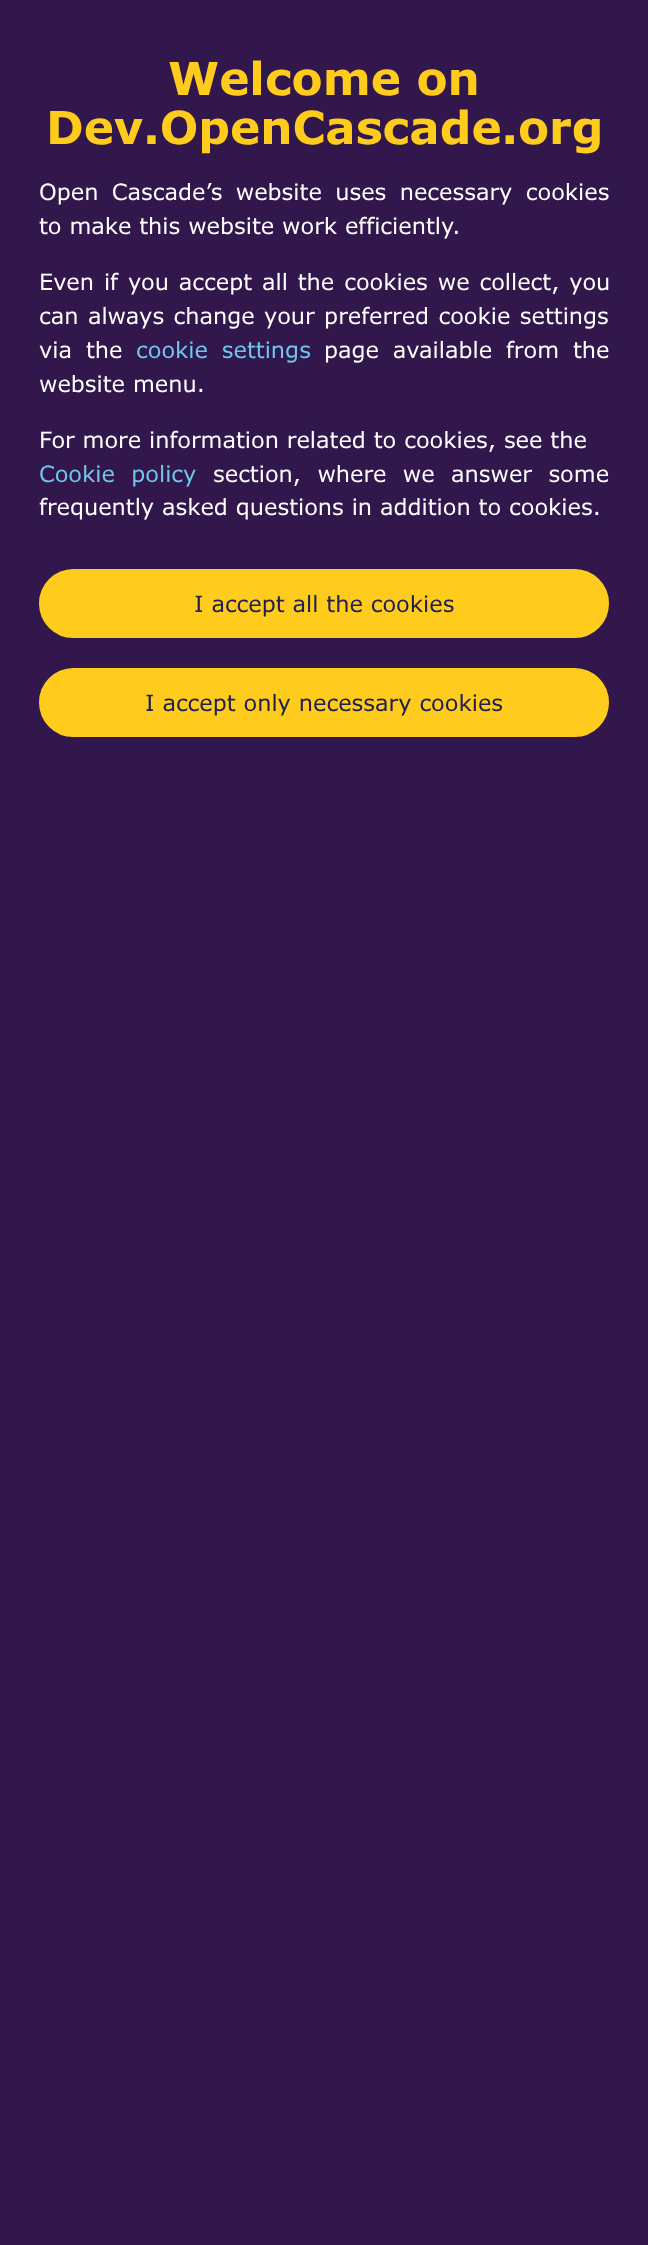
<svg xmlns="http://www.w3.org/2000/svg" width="648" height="2245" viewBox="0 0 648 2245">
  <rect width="100%" height="100%" fill="#32174d"/>
  <text x="168" y="95" font-family="Verdana" font-size="45.4" font-weight="bold" fill="#ffcc1e">Welcome on</text>
  <text x="46" y="144" font-family="Verdana" font-size="45.4" font-weight="bold" fill="#ffcc1e">Dev.OpenCascade.org</text>
  <text x="39" y="200" word-spacing="5.5" font-family="Verdana" font-size="22.5" fill="#ffffff">Open Cascade’s website uses necessary cookies</text>
  <text x="39" y="234" font-family="Verdana" font-size="22.5" fill="#ffffff">to make this website work efficiently.</text>
  <text x="39" y="290" word-spacing="2" font-family="Verdana" font-size="22.5" fill="#ffffff">Even if you accept all the cookies we collect, you</text>
  <text x="39" y="324" word-spacing="1.5" font-family="Verdana" font-size="22.5" fill="#ffffff">can always change your preferred cookie settings</text>
  <text x="39" y="358" word-spacing="6" font-family="Verdana" font-size="22.5" fill="#ffffff">via the</text>
  <text x="136" y="358" word-spacing="6" font-family="Verdana" font-size="22.5" fill="#71c5e8">cookie settings</text>
  <text x="324" y="358" word-spacing="6" font-family="Verdana" font-size="22.5" fill="#ffffff">page available from the</text>
  <text x="39" y="392" font-family="Verdana" font-size="22.5" fill="#ffffff">website menu.</text>
  <text x="39" y="448" font-family="Verdana" font-size="22.5" fill="#ffffff">For more information related to cookies, see the</text>
  <text x="39" y="482" word-spacing="8.5" font-family="Verdana" font-size="22.5" fill="#71c5e8">Cookie policy</text>
  <text x="213" y="482" word-spacing="8.5" font-family="Verdana" font-size="22.5" fill="#ffffff">section, where we answer some</text>
  <text x="39" y="515" font-family="Verdana" font-size="22.5" fill="#ffffff">frequently asked questions in addition to cookies.</text>
  <rect x="40" y="570" width="568" height="67" rx="33.5" fill="#ffcc1e" stroke="#ffcc1e" stroke-width="2"/>
  <text x="194" y="612" font-family="Verdana" font-size="22.5" fill="#20214f">I accept all the cookies</text>
  <rect x="40" y="669" width="568" height="67" rx="33.5" fill="#ffcc1e" stroke="#ffcc1e" stroke-width="2"/>
  <text x="145" y="711" font-family="Verdana" font-size="22.5" fill="#20214f">I accept only necessary cookies</text>
</svg>
